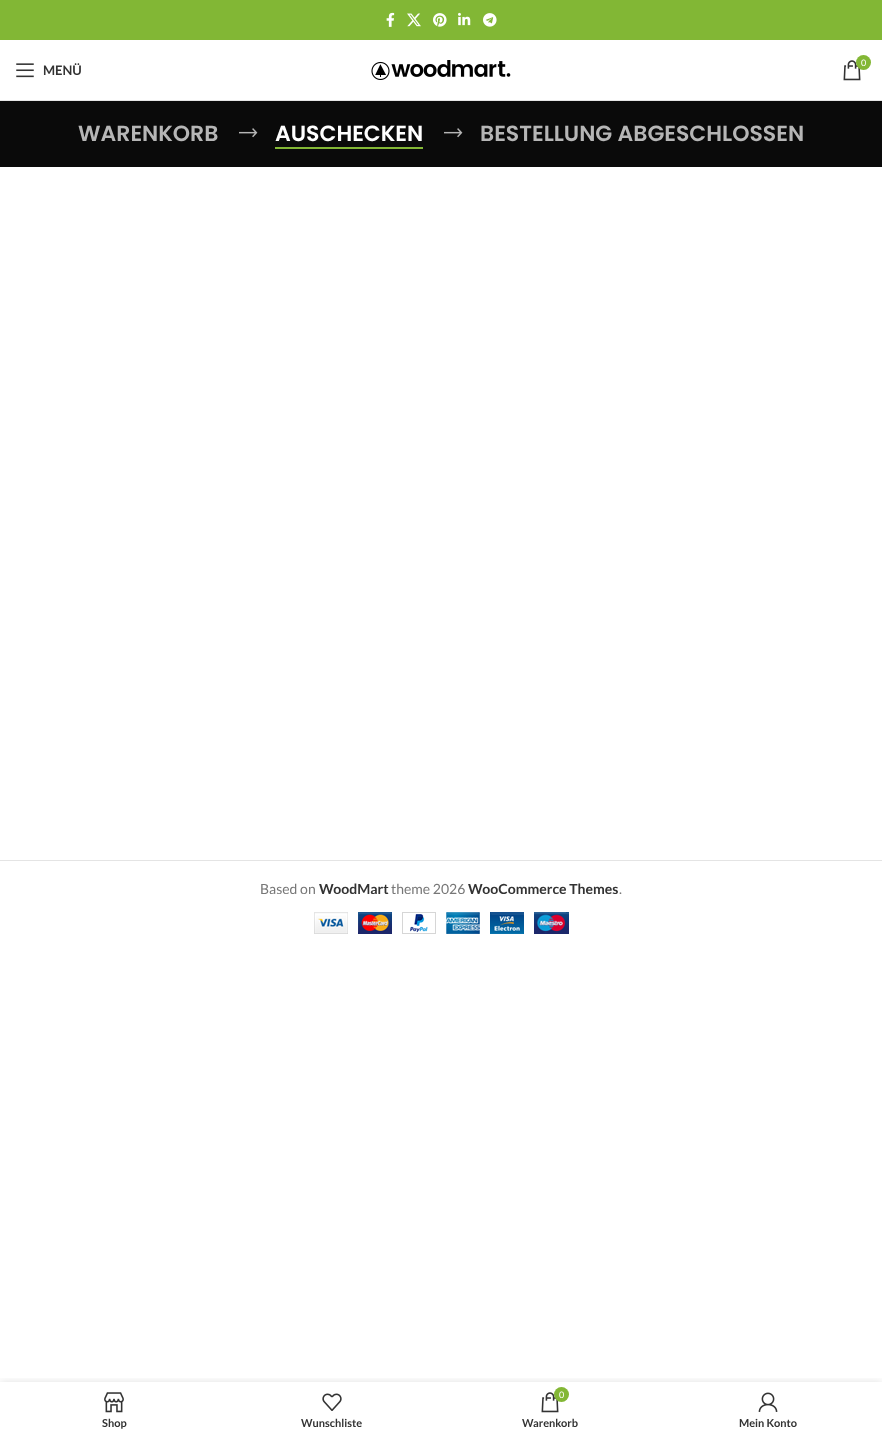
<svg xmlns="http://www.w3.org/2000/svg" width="882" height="1437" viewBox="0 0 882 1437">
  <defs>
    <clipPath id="clip1"><rect x="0" y="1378" width="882" height="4"/></clipPath>
    <filter id="blur1" x="-50%" y="-200%" width="200%" height="500%"><feGaussianBlur stdDeviation="4.5"/></filter>
  </defs>
  <rect width="100%" height="100%" fill="#ffffff"/>
  <rect x="0" y="0" width="882" height="40" fill="#82b735"/>
  <image x="386" y="12" width="9" height="15" href="img1.png"/>
  <image x="407" y="13" width="14" height="14" href="img2.png"/>
  <image x="433" y="13" width="14" height="14" href="img3.png"/>
  <image x="458" y="12" width="13" height="14" href="img4.png"/>
  <image x="483" y="13" width="14" height="14" href="img5.png"/>
  <rect x="0" y="100" width="882" height="1" fill="#e6e6e6"/>
  <image x="16" y="63" width="18" height="15" href="img6.png"/>
  <text x="43" y="75" font-family="Lato" font-size="13" font-weight="bold" fill="#333333">MENÜ</text>
  <image x="371" y="60" width="140" height="20" href="img7.png"/>
  <image x="843" y="60" width="18" height="21" href="img8.png"/>
  <circle cx="863.5" cy="62.5" r="7.5" fill="#83b735"/>
  <text x="861" y="66" font-family="Lato" font-size="9" fill="#ffffff">0</text>
  <rect x="0" y="101" width="882" height="66" fill="#0a0a0a"/>
  <text x="78" y="141" font-family="Poppins" font-size="22" font-weight="600" fill="#b6b6b6">WARENKORB</text>
  <image x="239" y="128" width="19" height="10" href="img9.png"/>
  <text x="275" y="141" font-family="Poppins" font-size="22" font-weight="600" fill="#ffffff">AUSCHECKEN</text>
  <rect x="275" y="147" width="148" height="2" fill="#83b735"/>
  <image x="444" y="128" width="19" height="10" href="img9.png"/>
  <text x="480" y="141" font-family="Poppins" font-size="22" font-weight="600" fill="#b6b6b6">BESTELLUNG ABGESCHLOSSEN</text>
  <rect x="0" y="860" width="882" height="1" fill="#e4e4e4"/>
  <text x="260" y="894" font-family="Lato" font-size="14" fill="#777777">Based on</text>
  <text x="319" y="894" font-family="Lato" font-size="14" font-weight="bold" fill="#333333">WoodMart</text>
  <text x="391" y="894" font-family="Lato" font-size="14" fill="#777777">theme 2026</text>
  <text x="468" y="894" font-family="Lato" font-size="14" font-weight="bold" fill="#333333">WooCommerce Themes</text>
  <text x="619" y="894" font-family="Lato" font-size="14" fill="#777777">.</text>
  <image x="314" y="912" width="255" height="22" href="img10.png"/>
  <g clip-path="url(#clip1)">
    <rect x="0" y="1382" width="882" height="55" fill="#000000" fill-opacity="0.12" filter="url(#blur1)"/>
  </g>
  <image x="104" y="1392" width="20" height="21" href="img11.png"/>
  <text x="102" y="1427" font-family="Lato" font-size="11" font-weight="bold" fill="#333333">Shop</text>
  <image x="322" y="1393" width="20" height="18" href="img12.png"/>
  <text x="301" y="1427" font-family="Lato" font-size="11" font-weight="bold" fill="#333333">Wunschliste</text>
  <image x="541" y="1392" width="18" height="21" href="img8.png"/>
  <circle cx="561.5" cy="1394.5" r="7.5" fill="#83b735"/>
  <text x="559" y="1398" font-family="Lato" font-size="9" fill="#ffffff">0</text>
  <text x="522" y="1427" font-family="Lato" font-size="11" font-weight="bold" fill="#333333">Warenkorb</text>
  <image x="758" y="1392" width="20" height="20" href="img13.png"/>
  <text x="739" y="1427" font-family="Lato" font-size="11" font-weight="bold" fill="#333333">Mein Konto</text>
</svg>
